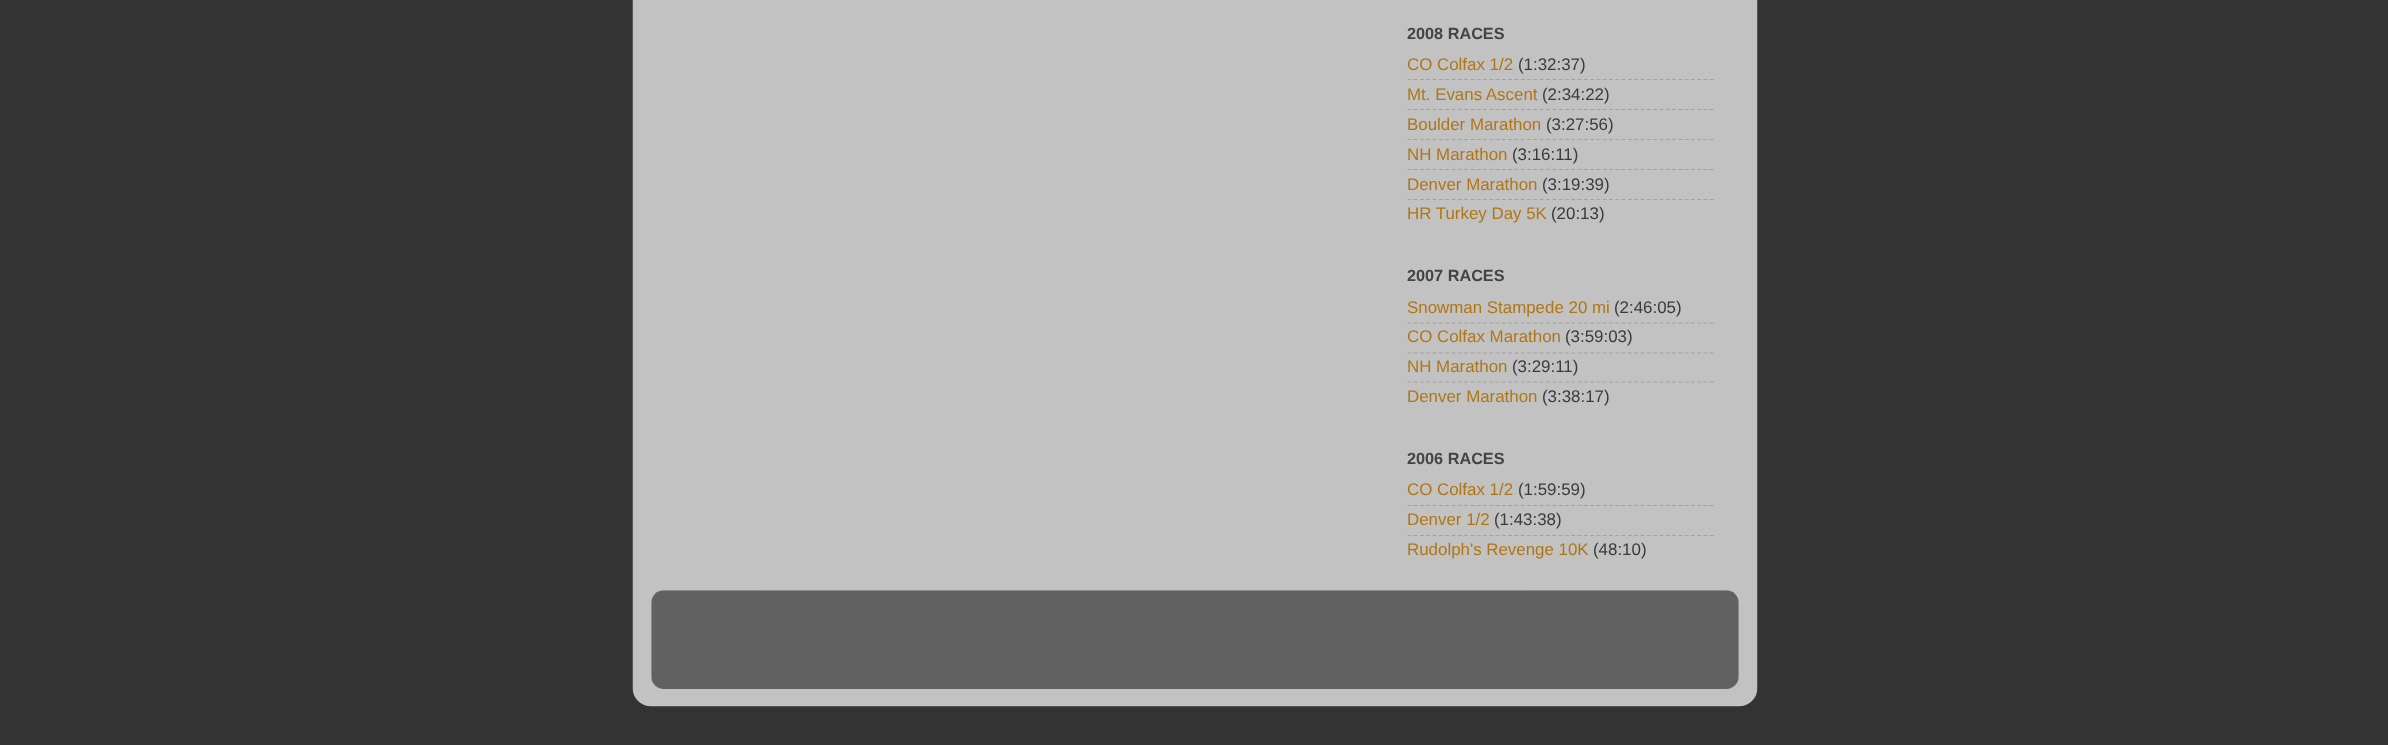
<svg xmlns="http://www.w3.org/2000/svg" width="2388" height="745" viewBox="0 0 2388 745">
  <rect width="100%" height="100%" fill="#333333"/>
  <image x="632" y="0" width="1126" height="707" href="img1.png"/>
  <text x="1407" y="39" font-family="Liberation Sans" font-size="16.25" font-weight="bold" fill="#444444">2008 RACES</text>
  <text x="1407" y="70" font-family="Liberation Sans" font-size="16.9" fill="#b17613">CO Colfax 1/2</text>
  <text x="1518" y="70" font-family="Liberation Sans" font-size="16.9" fill="#3b3b3b">(1:32:37)</text>
  <path d="M1407.5 79.5H1714" fill="none" stroke="#a1a1a1" stroke-width="1.2" stroke-dasharray="3.75 2.55"/>
  <text x="1407" y="100" font-family="Liberation Sans" font-size="16.9" fill="#b17613">Mt. Evans Ascent</text>
  <text x="1542" y="100" font-family="Liberation Sans" font-size="16.9" fill="#3b3b3b">(2:34:22)</text>
  <path d="M1407.5 109.5H1714" fill="none" stroke="#a1a1a1" stroke-width="1.2" stroke-dasharray="3.75 2.55"/>
  <text x="1407" y="130" font-family="Liberation Sans" font-size="16.9" fill="#b17613">Boulder Marathon</text>
  <text x="1546" y="130" font-family="Liberation Sans" font-size="16.9" fill="#3b3b3b">(3:27:56)</text>
  <path d="M1407.5 139.5H1714" fill="none" stroke="#a1a1a1" stroke-width="1.2" stroke-dasharray="3.75 2.55"/>
  <text x="1407" y="160" font-family="Liberation Sans" font-size="16.9" fill="#b17613">NH Marathon</text>
  <text x="1512" y="160" font-family="Liberation Sans" font-size="16.9" fill="#3b3b3b">(3:16:11)</text>
  <path d="M1407.5 169.5H1714" fill="none" stroke="#a1a1a1" stroke-width="1.2" stroke-dasharray="3.75 2.55"/>
  <text x="1407" y="190" font-family="Liberation Sans" font-size="16.9" fill="#b17613">Denver Marathon</text>
  <text x="1542" y="190" font-family="Liberation Sans" font-size="16.9" fill="#3b3b3b">(3:19:39)</text>
  <path d="M1407.5 199.5H1714" fill="none" stroke="#a1a1a1" stroke-width="1.2" stroke-dasharray="3.75 2.55"/>
  <text x="1407" y="219" font-family="Liberation Sans" font-size="16.9" fill="#b17613">HR Turkey Day 5K</text>
  <text x="1551" y="219" font-family="Liberation Sans" font-size="16.9" fill="#3b3b3b">(20:13)</text>
  <text x="1407" y="281" font-family="Liberation Sans" font-size="16.25" font-weight="bold" fill="#444444">2007 RACES</text>
  <text x="1407" y="313" font-family="Liberation Sans" font-size="16.9" fill="#b17613">Snowman Stampede 20 mi</text>
  <text x="1614" y="313" font-family="Liberation Sans" font-size="16.9" fill="#3b3b3b">(2:46:05)</text>
  <path d="M1407.5 323H1714" fill="none" stroke="#a1a1a1" stroke-width="1.2" stroke-dasharray="3.75 2.55"/>
  <text x="1407" y="342" font-family="Liberation Sans" font-size="16.9" fill="#b17613">CO Colfax Marathon</text>
  <text x="1565" y="342" font-family="Liberation Sans" font-size="16.9" fill="#3b3b3b">(3:59:03)</text>
  <path d="M1407.5 353H1714" fill="none" stroke="#a1a1a1" stroke-width="1.2" stroke-dasharray="3.75 2.55"/>
  <text x="1407" y="372" font-family="Liberation Sans" font-size="16.9" fill="#b17613">NH Marathon</text>
  <text x="1512" y="372" font-family="Liberation Sans" font-size="16.9" fill="#3b3b3b">(3:29:11)</text>
  <path d="M1407.5 382H1714" fill="none" stroke="#a1a1a1" stroke-width="1.2" stroke-dasharray="3.75 2.55"/>
  <text x="1407" y="402" font-family="Liberation Sans" font-size="16.9" fill="#b17613">Denver Marathon</text>
  <text x="1542" y="402" font-family="Liberation Sans" font-size="16.9" fill="#3b3b3b">(3:38:17)</text>
  <text x="1407" y="464" font-family="Liberation Sans" font-size="16.25" font-weight="bold" fill="#444444">2006 RACES</text>
  <text x="1407" y="495" font-family="Liberation Sans" font-size="16.9" fill="#b17613">CO Colfax 1/2</text>
  <text x="1518" y="495" font-family="Liberation Sans" font-size="16.9" fill="#3b3b3b">(1:59:59)</text>
  <path d="M1407.5 505.5H1714" fill="none" stroke="#a1a1a1" stroke-width="1.2" stroke-dasharray="3.75 2.55"/>
  <text x="1407" y="525" font-family="Liberation Sans" font-size="16.9" fill="#b17613">Denver 1/2</text>
  <text x="1494" y="525" font-family="Liberation Sans" font-size="16.9" fill="#3b3b3b">(1:43:38)</text>
  <path d="M1407.5 535.5H1714" fill="none" stroke="#a1a1a1" stroke-width="1.2" stroke-dasharray="3.75 2.55"/>
  <text x="1407" y="555" font-family="Liberation Sans" font-size="16.9" fill="#b17613">Rudolph's Revenge 10K</text>
  <text x="1593" y="555" font-family="Liberation Sans" font-size="16.9" fill="#3b3b3b">(48:10)</text>
  <image x="651" y="590" width="1088" height="99" href="img2.png"/>
</svg>
